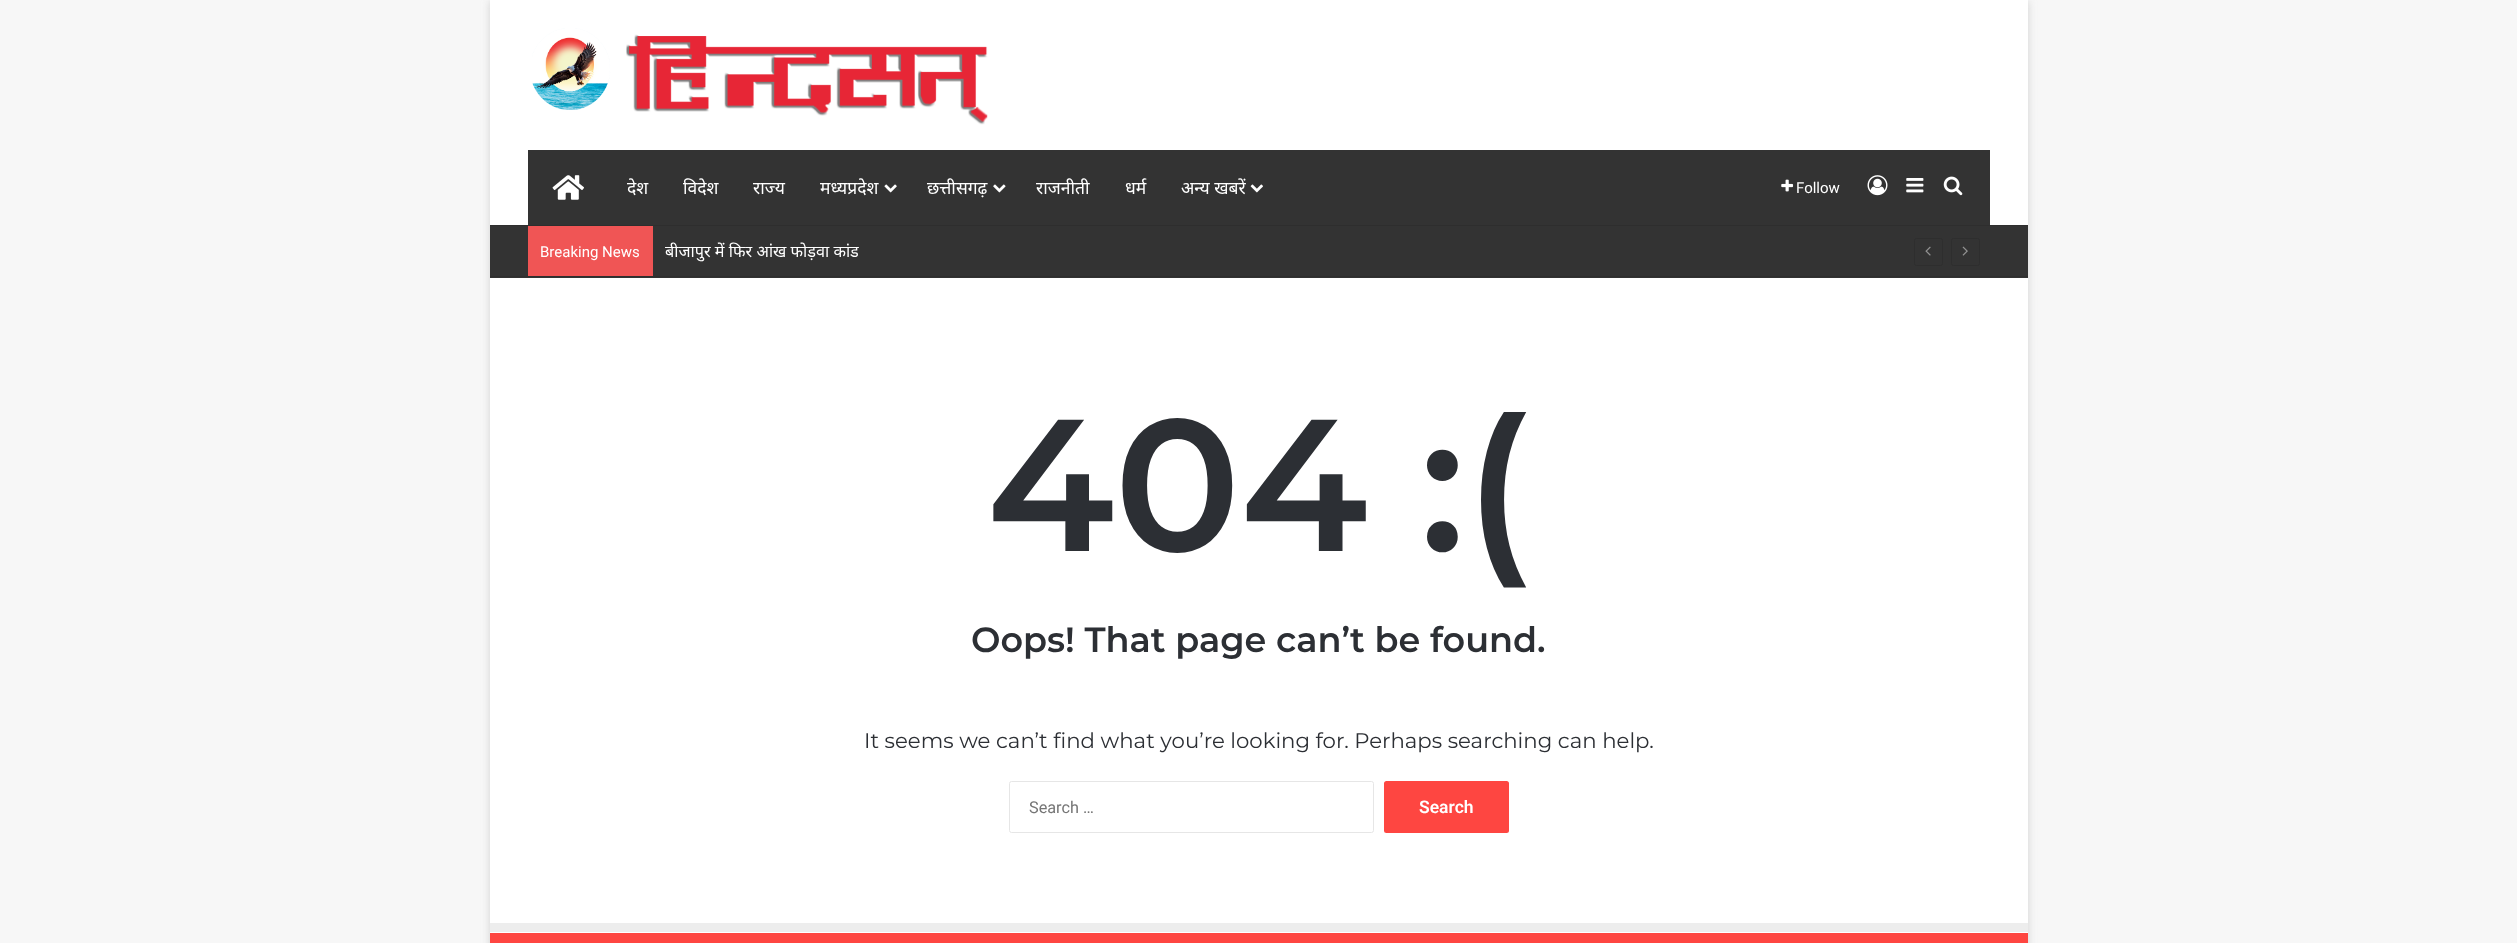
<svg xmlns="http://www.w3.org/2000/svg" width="2517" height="943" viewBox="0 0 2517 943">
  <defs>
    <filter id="blur1" x="-50%" y="-200%" width="200%" height="500%"><feGaussianBlur stdDeviation="4.5"/></filter>
    <clipPath id="clip1"><rect x="665" y="226" width="196" height="50"/></clipPath>
  </defs>
  <rect width="100%" height="100%" fill="#f7f7f7"/>
  <rect x="490" y="1" width="1538" height="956" fill="#ababab" fill-opacity="0.5" filter="url(#blur1)"/>
  <rect x="490" y="0" width="1538" height="933" fill="#ffffff"/>
  <image x="532" y="28" width="456" height="97" href="img1.png"/>
  <rect x="528" y="150" width="1462" height="75" fill="#333333"/>
  <image x="552" y="175" width="32" height="25" href="img2.png"/>
  <text x="627" y="194" font-family="Noto Sans" font-size="17.5" fill="#ffffff">देश</text>
  <text x="683" y="194" font-family="Noto Sans" font-size="17.5" fill="#ffffff">विदेश</text>
  <text x="753" y="194" font-family="Noto Sans" font-size="17.5" fill="#ffffff">राज्य</text>
  <text x="820" y="194" font-family="Noto Sans" font-size="17.5" fill="#ffffff">मध्यप्रदेश</text>
  <image x="884" y="184" width="13" height="9" href="img3.png"/>
  <text x="927" y="194" font-family="Noto Sans" font-size="17.5" fill="#ffffff">छत्तीसगढ़</text>
  <image x="993" y="184" width="13" height="9" href="img4.png"/>
  <text x="1036" y="194" font-family="Noto Sans" font-size="17.5" fill="#ffffff">राजनीती</text>
  <text x="1125" y="194" font-family="Noto Sans" font-size="17.5" fill="#ffffff">धर्म</text>
  <text x="1181" y="194" font-family="Noto Sans" font-size="17.5" fill="#ffffff">अन्य खबरें</text>
  <image x="1250" y="184" width="13" height="9" href="img5.png"/>
  <image x="1781" y="179" width="13" height="13" href="img6.png"/>
  <text x="1796" y="193" font-family="Roboto" font-size="15" fill="#ffffff">Follow</text>
  <image x="1867" y="175" width="21" height="21" href="img7.png"/>
  <image x="1906" y="178" width="18" height="15" href="img8.png"/>
  <image x="1943" y="176" width="20" height="20" href="img9.png"/>
  <rect x="490" y="226" width="1538" height="52" fill="#333333"/>
  <rect x="490" y="225" width="1538" height="1" fill="#2e2e2e"/>
  <rect x="490" y="276" width="1538" height="1" fill="#2e2e2e"/>
  <rect x="528" y="226" width="125" height="50" fill="#f05555"/>
  <text x="540" y="257" font-family="Roboto" font-size="15" fill="#ffffff">Breaking News</text>
  <g clip-path="url(#clip1)">
    <text x="665" y="257" font-family="Noto Sans" font-size="16.25" fill="#ffffff">बीजापुर में फिर आंख फोड़वा कांड</text>
  </g>
  <rect x="1914.5" y="238.5" width="28" height="27" rx="2" fill="none" stroke="#2e2e2e"/>
  <image x="1925" y="246" width="6" height="10" href="img10.png"/>
  <rect x="1951.5" y="238.5" width="28" height="27" rx="2" fill="none" stroke="#2e2e2e"/>
  <image x="1962" y="246" width="6" height="10" href="img11.png"/>
  <text x="987" y="551" font-family="Montserrat" font-size="187.5" font-weight="600" fill="#2c2f34">404 :(</text>
  <text x="971" y="652" font-family="Montserrat" font-size="35" font-weight="600" fill="#2c2f34">Oops! That page can’t be found.</text>
  <text x="864" y="748" font-family="Montserrat" font-size="21.25" fill="#2c2f34">It seems we can’t find what you’re looking for. Perhaps searching can help.</text>
  <rect x="1009.5" y="781.5" width="364" height="51" rx="2" fill="none" stroke="#e6e6e6"/>
  <text x="1029" y="813" font-family="Roboto" font-size="16.25" fill="#757575">Search …</text>
  <rect x="1384" y="781" width="125" height="52" rx="2.5" fill="#fe4641"/>
  <text x="1419" y="813" font-family="Roboto" font-size="17.5" font-weight="600" fill="#ffffff">Search</text>
  <path d="M490 923V932H2028V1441V923Z" fill="#ededed"/>
  <rect x="490" y="933" width="1538" height="10" fill="#fe4641"/>
</svg>
